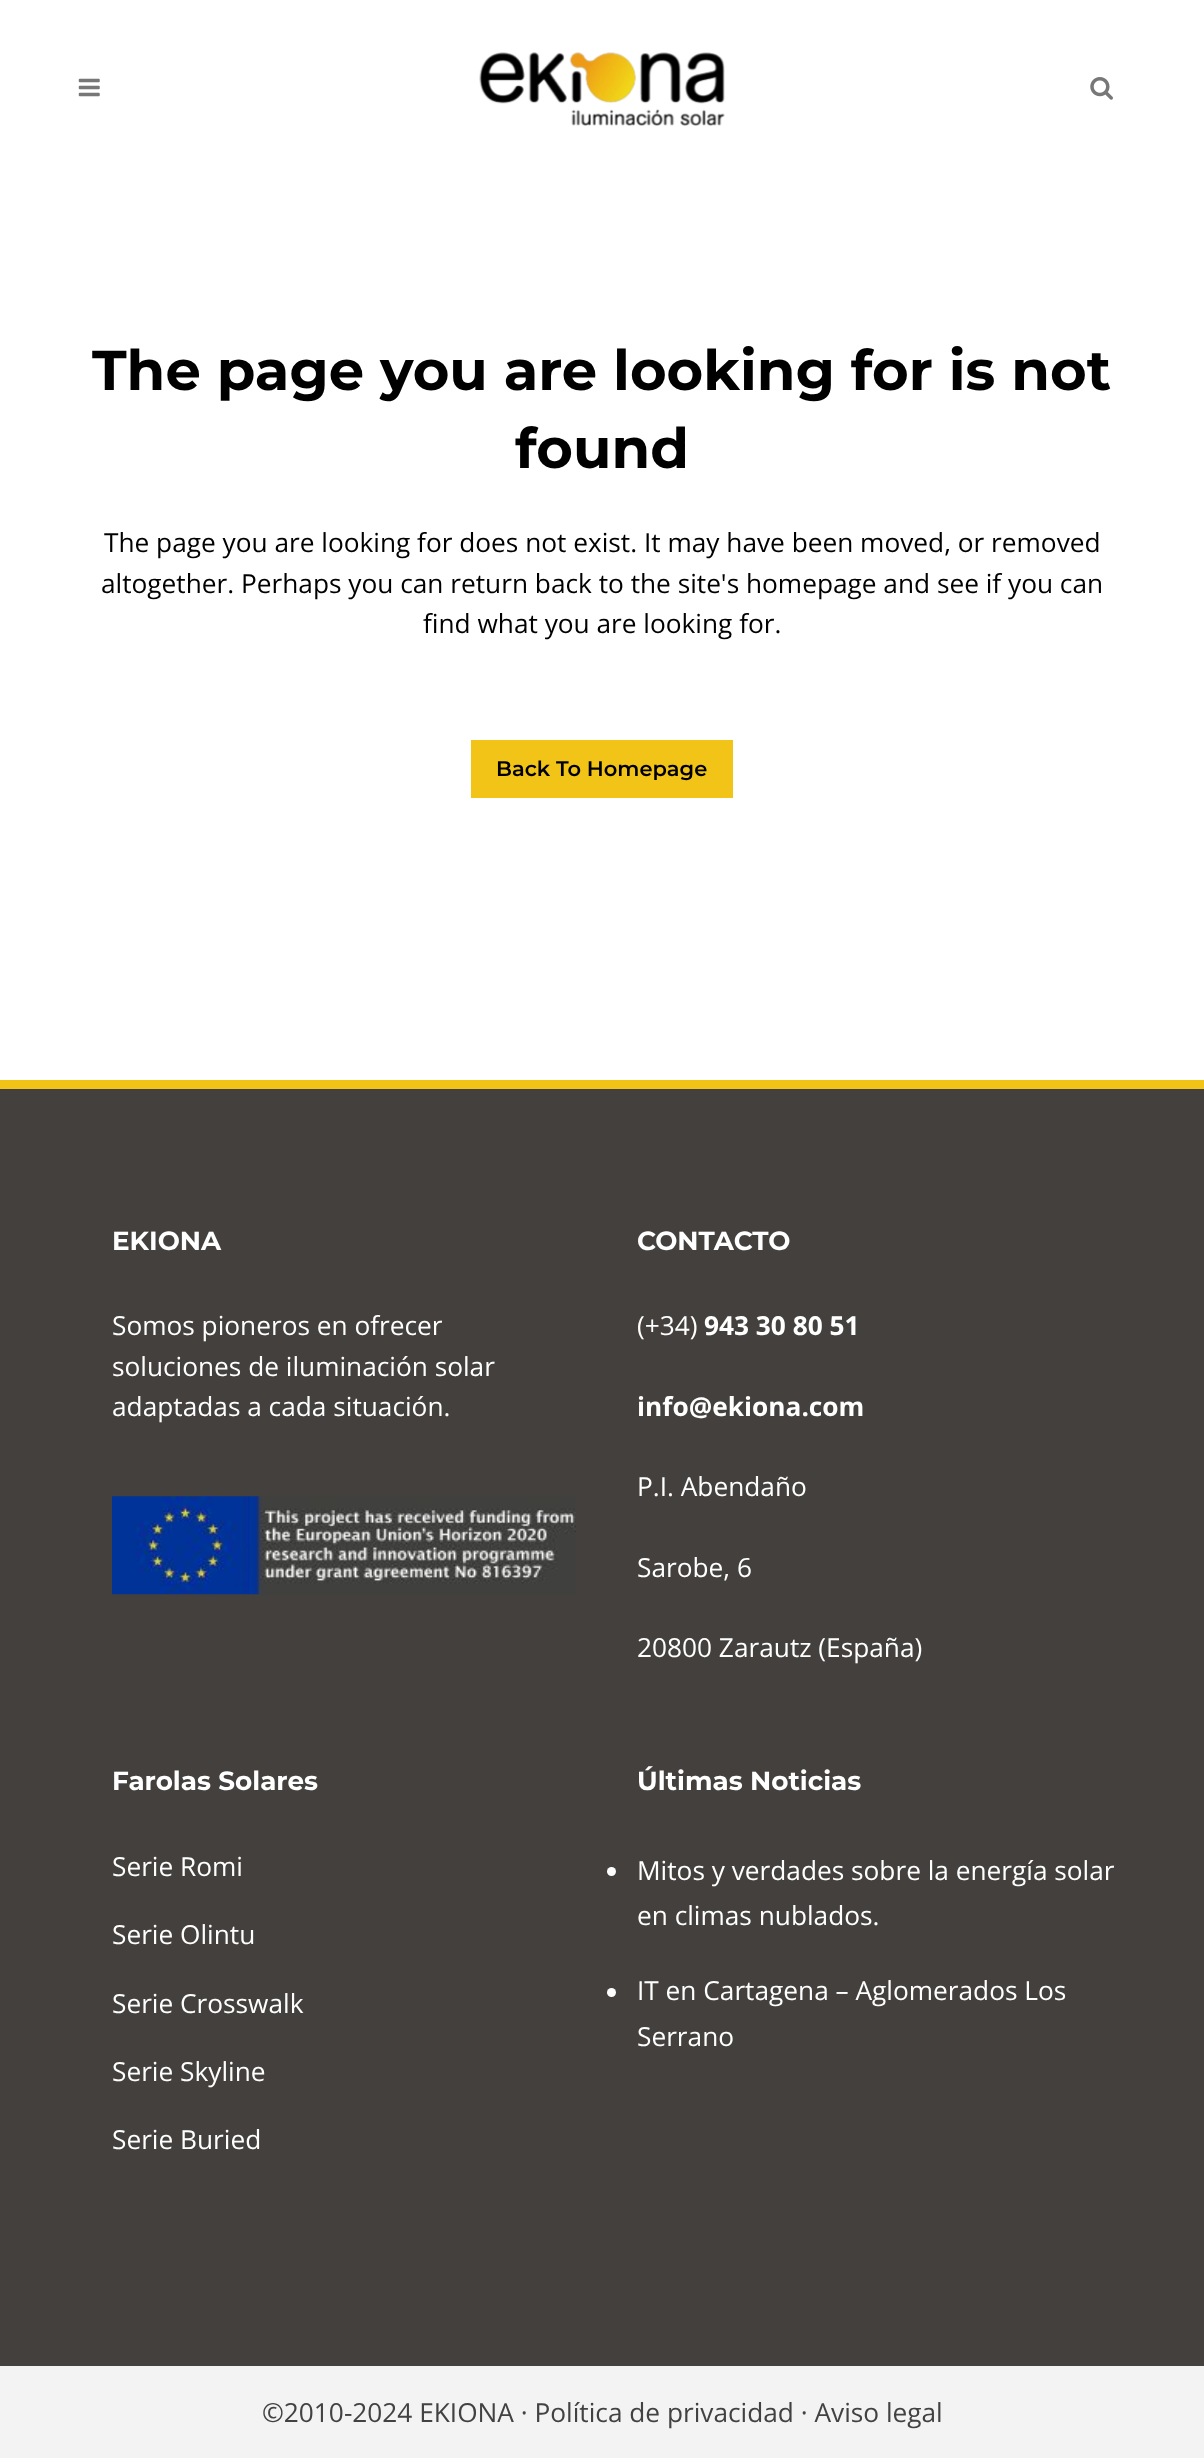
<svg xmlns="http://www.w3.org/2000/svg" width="1204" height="2458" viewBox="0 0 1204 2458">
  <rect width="100%" height="100%" fill="#ffffff"/>
  <image x="78" y="78" width="22" height="19" href="img1.png"/>
  <image x="479" y="52" width="246" height="74" href="img2.png"/>
  <image x="1090" y="77" width="23" height="23" href="img3.png"/>
  <text x="92" y="390" font-family="Montserrat" font-size="56" font-weight="bold" fill="#000000">The page you are looking for is not</text>
  <text x="515" y="468" font-family="Montserrat" font-size="56" font-weight="bold" fill="#000000">found</text>
  <text x="104" y="552" font-family="Open Sans" font-size="26.25" fill="#000000">The page you are looking for does not exist. It may have been moved, or removed</text>
  <text x="101" y="593" font-family="Open Sans" font-size="26.25" fill="#000000">altogether. Perhaps you can return back to the site's homepage and see if you can</text>
  <text x="423" y="633" font-family="Open Sans" font-size="26.25" fill="#000000">find what you are looking for.</text>
  <rect x="471" y="740" width="262" height="58" fill="#f2c417"/>
  <text x="496" y="776" font-family="Montserrat" font-size="21" font-weight="600" fill="#000000">Back To Homepage</text>
  <rect x="0" y="1089" width="1204" height="1277" fill="#43403e"/>
  <rect x="0" y="1080" width="1204" height="9" fill="#f2c417"/>
  <text x="112" y="1250" font-family="Montserrat" font-size="26.25" font-weight="bold" fill="#ffffff">EKIONA</text>
  <text x="112" y="1335" font-family="Open Sans" font-size="26.25" fill="#ffffff">Somos pioneros en ofrecer</text>
  <text x="112" y="1376" font-family="Open Sans" font-size="26.25" fill="#ffffff">soluciones de iluminación solar</text>
  <text x="112" y="1416" font-family="Open Sans" font-size="26.25" fill="#ffffff">adaptadas a cada situación.</text>
  <image x="112" y="1496" width="464" height="99" href="img4.png"/>
  <text x="637" y="1250" font-family="Montserrat" font-size="26.25" font-weight="bold" fill="#ffffff">CONTACTO</text>
  <text x="637" y="1335" font-family="Open Sans" font-size="26.25" fill="#ffffff">(+34)</text>
  <text x="704" y="1335" font-family="Open Sans" font-size="26.25" font-weight="bold" fill="#ffffff">943 30 80 51</text>
  <text x="637" y="1416" font-family="Open Sans" font-size="26.25" font-weight="bold" fill="#ffffff">info@ekiona.com</text>
  <text x="637" y="1496" font-family="Open Sans" font-size="26.25" fill="#ffffff">P.I. Abendaño</text>
  <text x="637" y="1577" font-family="Open Sans" font-size="26.25" fill="#ffffff">Sarobe, 6</text>
  <text x="637" y="1657" font-family="Open Sans" font-size="26.25" fill="#ffffff">20800 Zarautz (España)</text>
  <text x="112" y="1790" font-family="Montserrat" font-size="26.25" font-weight="bold" fill="#ffffff">Farolas Solares</text>
  <text x="112" y="1876" font-family="Open Sans" font-size="26.25" fill="#ffffff">Serie Romi</text>
  <text x="112" y="1944" font-family="Open Sans" font-size="26.25" fill="#ffffff">Serie Olintu</text>
  <text x="112" y="2013" font-family="Open Sans" font-size="26.25" fill="#ffffff">Serie Crosswalk</text>
  <text x="112" y="2081" font-family="Open Sans" font-size="26.25" fill="#ffffff">Serie Skyline</text>
  <text x="112" y="2149" font-family="Open Sans" font-size="26.25" fill="#ffffff">Serie Buried</text>
  <text x="637" y="1790" font-family="Montserrat" font-size="26.25" font-weight="bold" fill="#ffffff">Últimas Noticias</text>
  <circle cx="611.5" cy="1871.5" r="4.5" fill="#ffffff"/>
  <text x="637" y="1880" font-family="Open Sans" font-size="26.25" fill="#ffffff">Mitos y verdades sobre la energía solar</text>
  <text x="637" y="1925" font-family="Open Sans" font-size="26.25" fill="#ffffff">en climas nublados.</text>
  <circle cx="611.5" cy="1992.5" r="4.5" fill="#ffffff"/>
  <text x="637" y="2000" font-family="Open Sans" font-size="26.25" fill="#ffffff">IT en Cartagena – Aglomerados Los</text>
  <text x="637" y="2046" font-family="Open Sans" font-size="26.25" fill="#ffffff">Serrano</text>
  <rect x="0" y="2366" width="1204" height="92" fill="#f3f3f3"/>
  <text x="262" y="2422" font-family="Open Sans" font-size="26.25" fill="#424242">©2010-2024 EKIONA · Política de privacidad · Aviso legal</text>
</svg>
